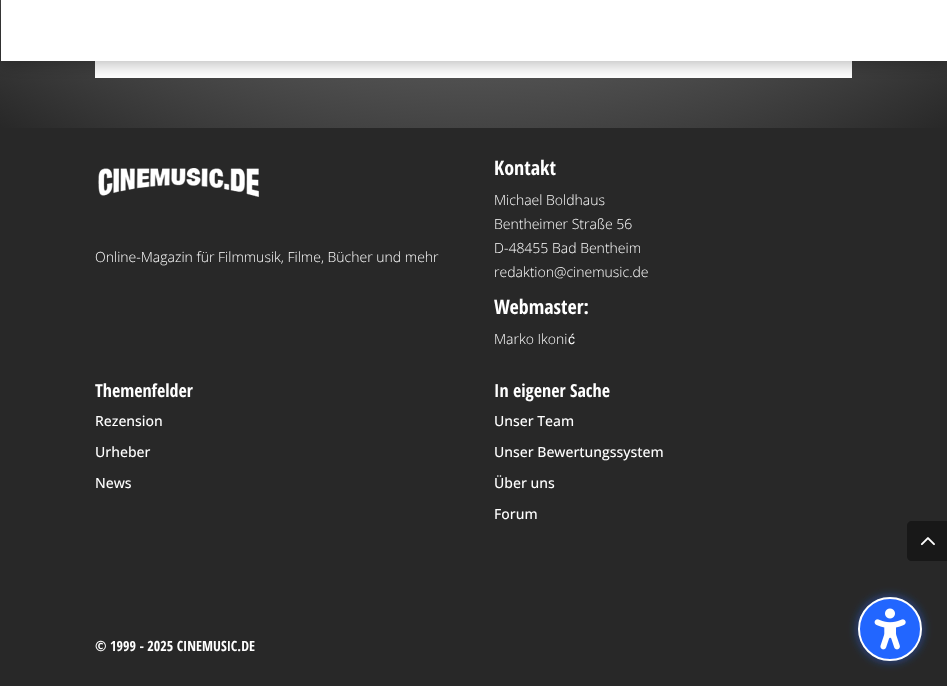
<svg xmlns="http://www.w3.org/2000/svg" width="947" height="686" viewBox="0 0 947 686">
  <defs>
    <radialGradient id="g1" gradientUnits="userSpaceOnUse" cx="474" cy="-705" r="958"><stop offset="0" stop-color="#ffffff"/><stop offset="1" stop-color="#282828"/></radialGradient>
    <filter id="blur1" x="-50%" y="-200%" width="200%" height="500%"><feGaussianBlur stdDeviation="9"/></filter>
    <filter id="blur2" x="-50%" y="-200%" width="200%" height="500%"><feGaussianBlur stdDeviation="4"/></filter>
  </defs>
  <rect width="100%" height="100%" fill="#ffffff"/>
  <rect x="0" y="0" width="947" height="128" fill="url(#g1)"/>
  <rect x="95" y="61" width="757" height="17" fill="#ffffff"/>
  <rect x="1" y="2" width="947" height="61" fill="#000000" fill-opacity="0.3" filter="url(#blur1)"/>
  <rect x="1" y="0" width="946" height="61" fill="#ffffff"/>
  <rect x="0" y="128" width="947" height="558" fill="#282828"/>
  <image x="98" y="168" width="161" height="29" href="img1.png"/>
  <text x="95" y="262" font-family="Open Sans" font-size="14" font-weight="300" fill="#ffffff">Online-Magazin für Filmmusik, Filme, Bücher und mehr</text>
  <text x="494" y="175" font-family="Open Sans Condensed" font-size="20" font-weight="bold" fill="#ffffff">Kontakt</text>
  <text x="494" y="205" font-family="Open Sans" font-size="14" font-weight="300" fill="#ffffff">Michael Boldhaus</text>
  <text x="494" y="229" font-family="Open Sans" font-size="14" font-weight="300" fill="#ffffff">Bentheimer Straße 56</text>
  <text x="494" y="253" font-family="Open Sans" font-size="14" font-weight="300" fill="#ffffff">D-48455 Bad Bentheim</text>
  <text x="494" y="277" font-family="Open Sans" font-size="14" font-weight="300" fill="#ffffff">redaktion@cinemusic.de</text>
  <text x="494" y="314" font-family="Open Sans Condensed" font-size="20" font-weight="bold" fill="#ffffff">Webmaster:</text>
  <text x="494" y="344" font-family="Open Sans" font-size="14" font-weight="300" fill="#ffffff">Marko Ikoni</text>
  <text x="568" y="344" font-family="Liberation Sans" font-size="14" fill="#ffffff">ć</text>
  <text x="95" y="397" font-family="Open Sans Condensed" font-size="18" font-weight="bold" fill="#ffffff">Themenfelder</text>
  <text x="95" y="426" font-family="Open Sans" font-size="14" font-weight="500" fill="#ffffff">Rezension</text>
  <text x="95" y="457" font-family="Open Sans" font-size="14" font-weight="500" fill="#ffffff">Urheber</text>
  <text x="95" y="488" font-family="Open Sans" font-size="14" font-weight="500" fill="#ffffff">News</text>
  <text x="494" y="397" font-family="Open Sans Condensed" font-size="18" font-weight="bold" fill="#ffffff">In eigener Sache</text>
  <text x="494" y="426" font-family="Open Sans" font-size="14" font-weight="500" fill="#ffffff">Unser Team</text>
  <text x="494" y="457" font-family="Open Sans" font-size="14" font-weight="500" fill="#ffffff">Unser Bewertungssystem</text>
  <text x="494" y="488" font-family="Open Sans" font-size="14" font-weight="500" fill="#ffffff">Über uns</text>
  <text x="494" y="519" font-family="Open Sans" font-size="14" font-weight="500" fill="#ffffff">Forum</text>
  <text x="95" y="651" font-family="Open Sans Condensed" font-size="14" font-weight="bold" fill="#ffffff">© 1999 - 2025 CINEMUSIC.DE</text>
  <path d="M912 521H947V561H912C909 561 907 559 907 556V526C907 523 909 521 912 521Z" fill="#181818"/>
  <image x="920" y="537" width="15" height="9" href="img2.png"/>
  <rect x="856" y="595" width="68" height="68" rx="34" fill="#2266ff" fill-opacity="0.4" filter="url(#blur2)"/>
  <circle cx="890" cy="629" r="31" fill="#2266ff" stroke="#ffffff" stroke-width="2"/>
  <image x="874" y="608" width="32" height="42" href="img3.png"/>
</svg>
